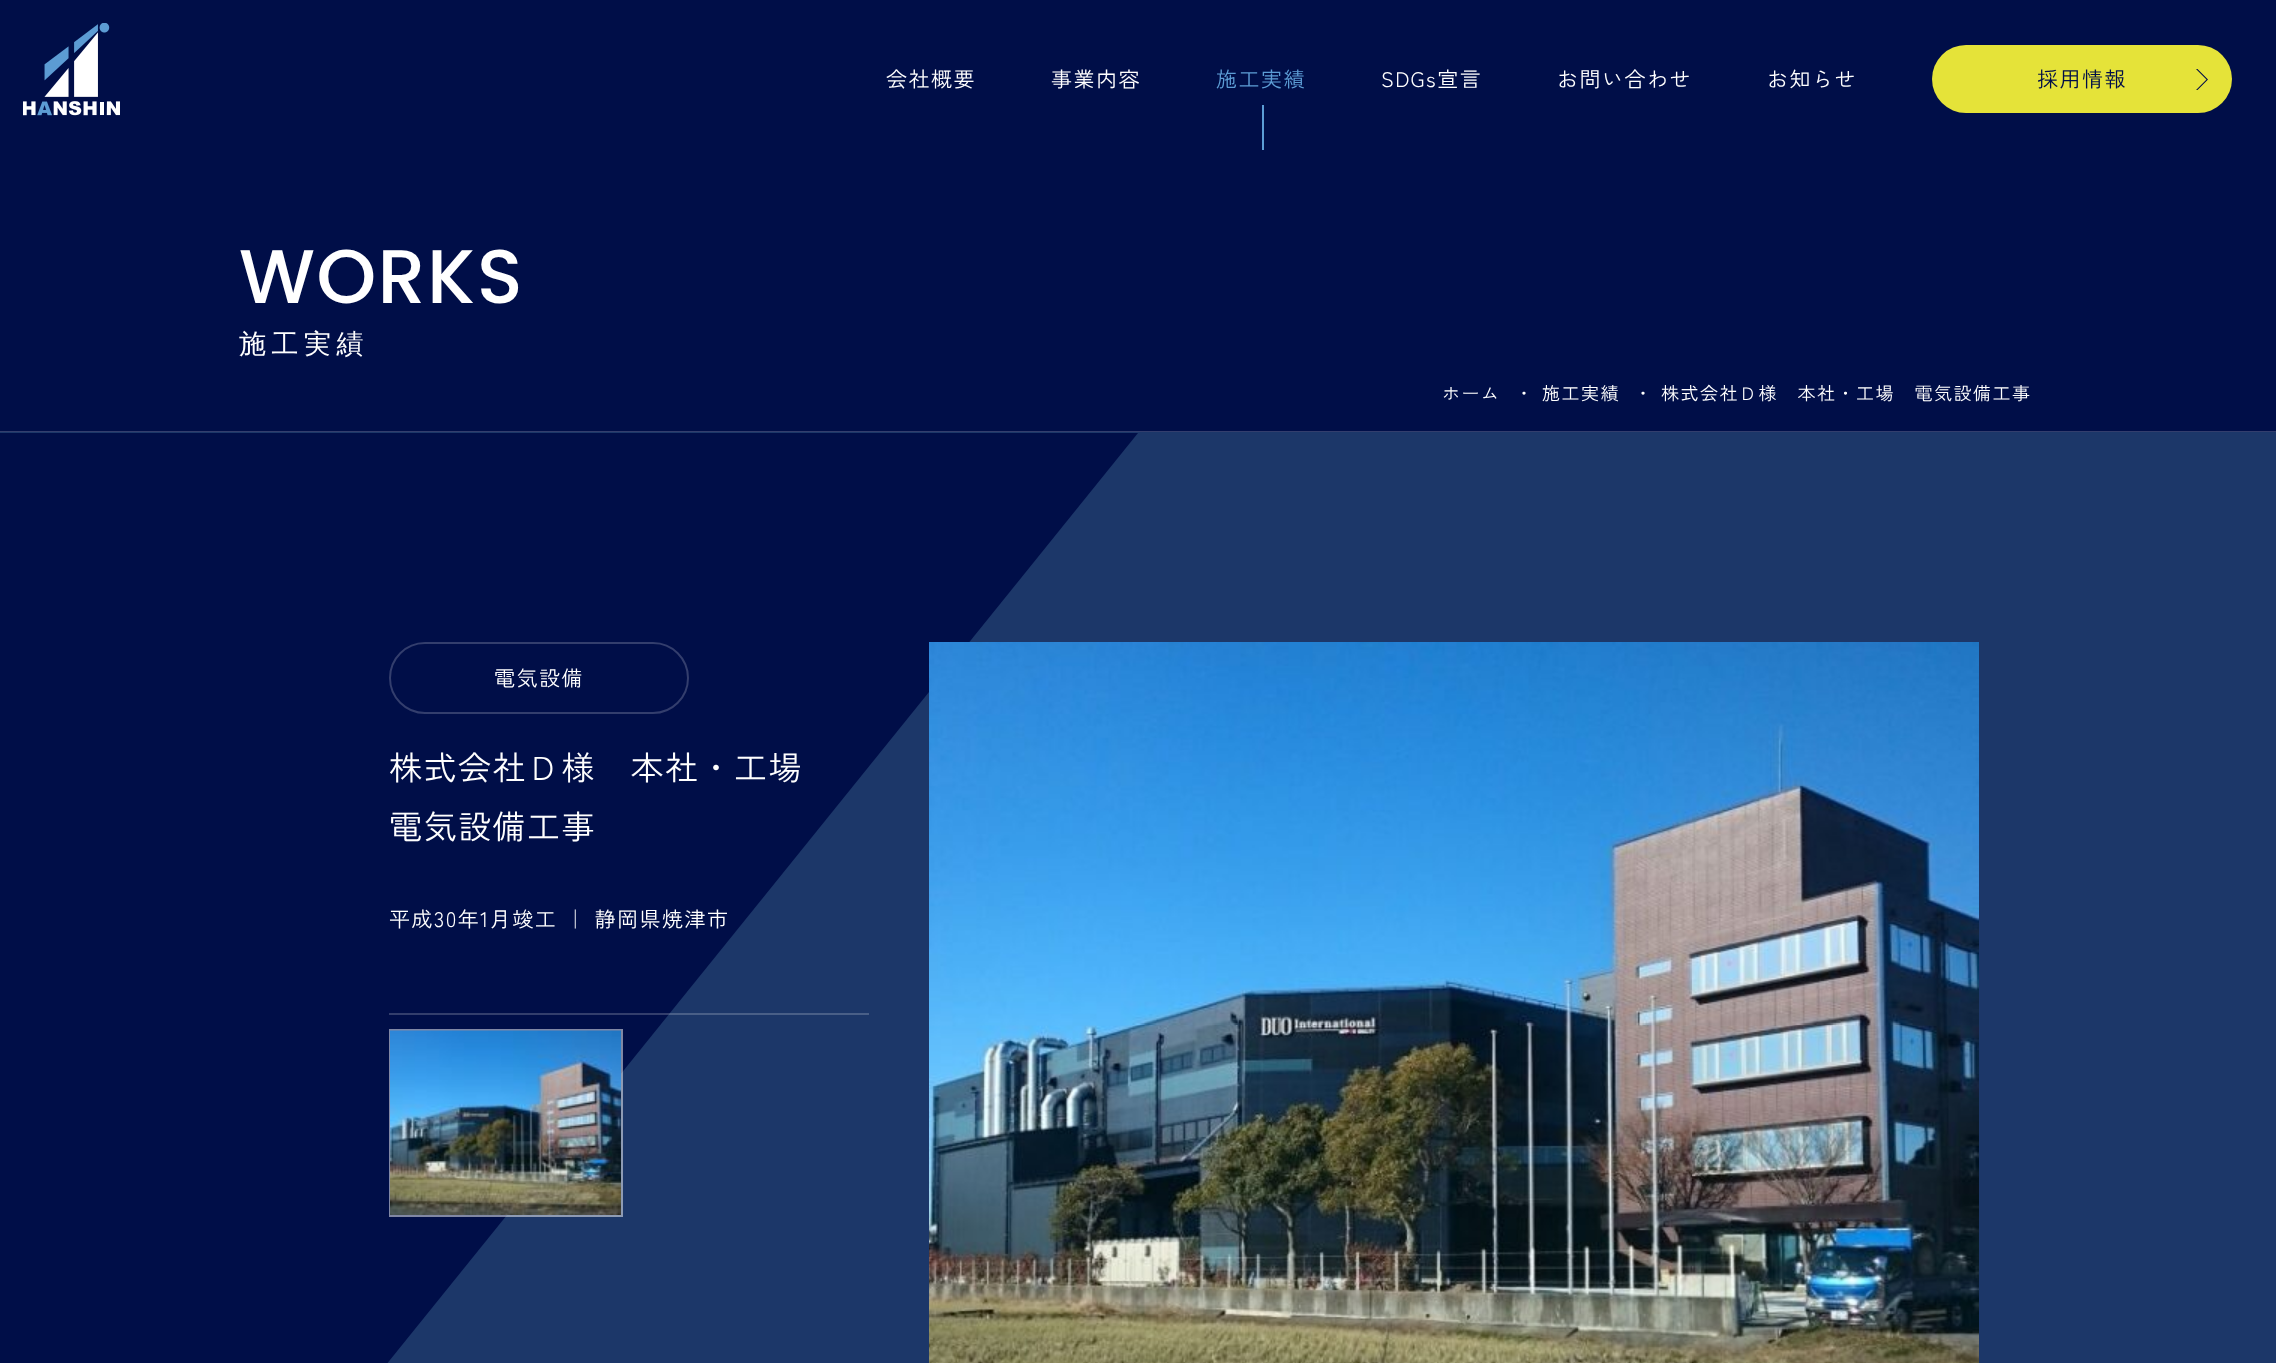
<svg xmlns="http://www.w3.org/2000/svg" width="2276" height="1363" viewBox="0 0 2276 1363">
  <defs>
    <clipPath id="clip1"><rect x="2196" y="69" width="12" height="21"/></clipPath>
  </defs>
  <rect width="100%" height="100%" fill="#000e48"/>
  <image x="23" y="23" width="97" height="93" href="img1.png"/>
  <text x="886" y="87" font-family="Zen Kaku Gothic New" font-size="21" letter-spacing="1.5" fill="#ffffff">会社概要</text>
  <text x="1051" y="87" font-family="Zen Kaku Gothic New" font-size="21" letter-spacing="1.5" fill="#ffffff">事業内容</text>
  <text x="1216" y="87" font-family="Zen Kaku Gothic New" font-size="21" letter-spacing="1.5" fill="#5c9dd5">施工実績</text>
  <rect x="1262" y="105" width="2" height="45" fill="#5c9dd5"/>
  <text x="1381" y="87" font-family="Zen Kaku Gothic New" font-size="21" letter-spacing="1.5" fill="#ffffff">SDGs宣言</text>
  <text x="1557" y="87" font-family="Zen Kaku Gothic New" font-size="21" letter-spacing="1.5" fill="#ffffff">お問い合わせ</text>
  <text x="1767" y="87" font-family="Zen Kaku Gothic New" font-size="21" letter-spacing="1.5" fill="#ffffff">お知らせ</text>
  <rect x="1932" y="45" width="300" height="68" rx="34" fill="#e5e339"/>
  <text x="2037" y="87" font-family="Zen Kaku Gothic New" font-size="21" letter-spacing="1.5" fill="#000e48">採用情報</text>
  <g clip-path="url(#clip1)">
    <path d="M2197 90.5L2196 90L2206.5 79.5L2196 69L2197 68.5L2208 79.5Z" fill="#000e48"/>
  </g>
  <rect x="0" y="431" width="2276" height="1" fill="#333e6d"/>
  <text x="239" y="303" font-family="Poppins" font-size="76" font-weight="500" letter-spacing="1.5" fill="#ffffff">WORKS</text>
  <text x="239" y="353" font-family="WenQuanYi Zen Hei" font-size="27" font-weight="500" letter-spacing="5.5" fill="#ffffff">施工実績</text>
  <text x="1442" y="400" font-family="Zen Kaku Gothic New" font-size="18" letter-spacing="1.5" fill="#ffffff">ホーム</text>
  <text x="1515" y="400" font-family="Zen Kaku Gothic New" font-size="18" letter-spacing="1.5" fill="#ffffff">・</text>
  <text x="1542" y="400" font-family="Zen Kaku Gothic New" font-size="18" letter-spacing="1.5" fill="#ffffff">施工実績</text>
  <text x="1634" y="400" font-family="Zen Kaku Gothic New" font-size="18" letter-spacing="1.5" fill="#ffffff">・</text>
  <text x="1661" y="400" font-family="Zen Kaku Gothic New" font-size="18" letter-spacing="1.5" fill="#ffffff">株式会社Ｄ様　本社・工場　電気設備工事</text>
  <rect x="0" y="432" width="2276" height="931" fill="#1c3769"/>
  <path d="M0 433V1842H1L1138 433Z" fill="#000e48"/>
  <rect x="390" y="643" width="298" height="70" rx="35" fill="none" stroke="#333e6d" stroke-width="2"/>
  <text x="494" y="686" font-family="Zen Kaku Gothic New" font-size="21" letter-spacing="1.5" fill="#ffffff">電気設備</text>
  <text x="389" y="780" font-family="Zen Kaku Gothic New" font-size="33" letter-spacing="1.5" fill="#ffffff">株式会社Ｄ様　本社・工場</text>
  <text x="389" y="839" font-family="Zen Kaku Gothic New" font-size="33" letter-spacing="1.5" fill="#ffffff">電気設備工事</text>
  <text x="389" y="927" font-family="Zen Kaku Gothic New" font-size="21" letter-spacing="1.5" fill="#ffffff">平成30年1月竣工 ｜ 静岡県焼津市</text>
  <rect x="389" y="1013" width="480" height="2" fill="#ffffff" fill-opacity="0.2"/>
  <rect x="390" y="1030" width="232" height="186" fill="none" stroke="#ffffff" stroke-opacity="0.5" stroke-width="2"/>
  <image x="390" y="1030" width="231" height="185" href="img2.png"/>
  <image x="929" y="642" width="1050" height="721" href="img3.png"/>
</svg>
